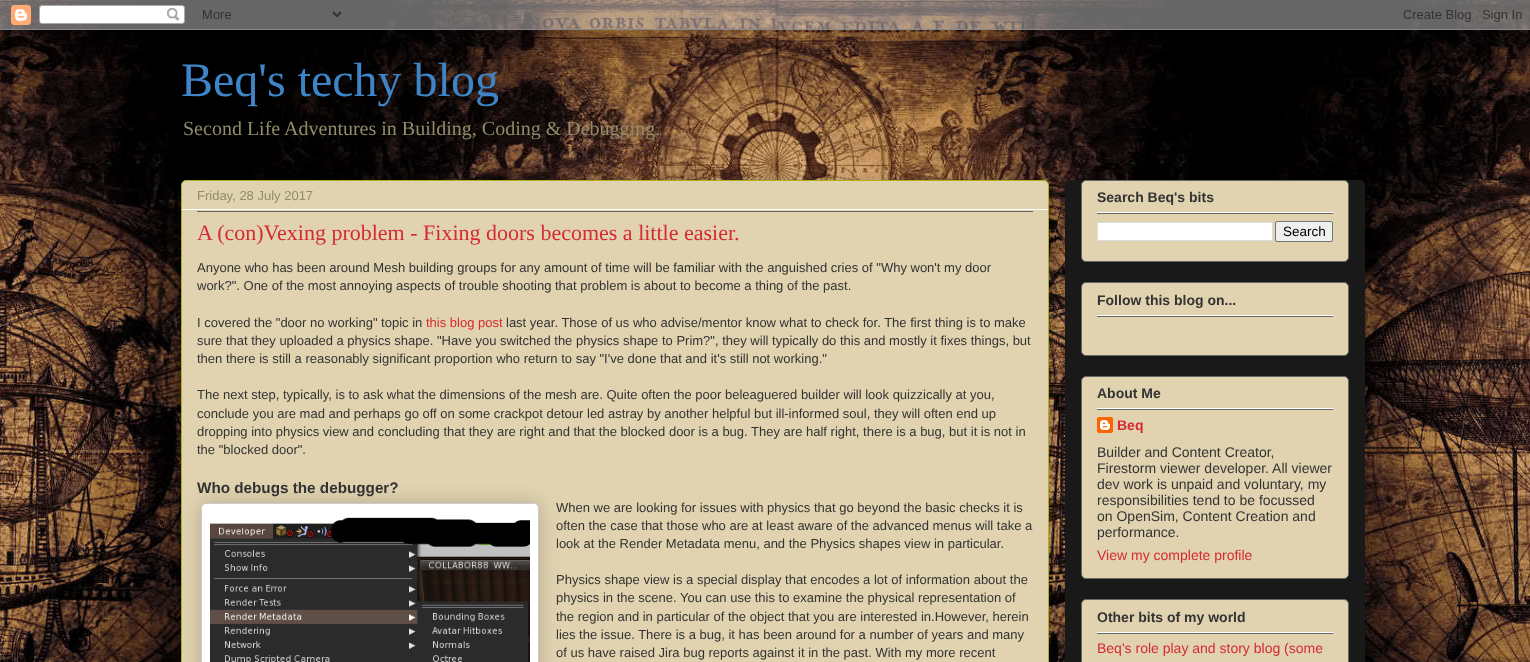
<svg xmlns="http://www.w3.org/2000/svg" width="1530" height="662" viewBox="0 0 1530 662">
  <defs>
    <filter id="blur1" x="-50%" y="-200%" width="200%" height="500%"><feGaussianBlur stdDeviation="10"/></filter>
  </defs>
  <rect width="100%" height="100%" fill="#ffffff"/>
  <image x="0" y="0" width="1530" height="662" href="img1.png"/>
  <image x="0" y="0" width="1530" height="30" href="img2.png"/>
  <text x="181" y="96" font-family="Liberation Serif" font-size="48" fill="#3d85c6">Beq's techy blog</text>
  <text x="183" y="135" font-family="Liberation Serif" font-size="20" fill="#908c6a">Second Life Adventures in Building, Coding &amp; Debugging.</text>
  <rect x="181" y="180" width="868" height="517" rx="5" fill="#000000" fill-opacity="0.2" filter="url(#blur1)"/>
  <rect x="181.5" y="180.5" width="867" height="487" rx="4.5" fill="#e1d3b0" stroke="#aab123"/>
  <rect x="182" y="209" width="866" height="1" fill="#ffffff"/>
  <text x="197" y="200" font-family="Liberation Sans" font-size="13" fill="#908c6a">Friday, 28 July 2017</text>
  <rect x="197" y="211" width="836" height="1" fill="#666666"/>
  <text x="197" y="240" font-family="Liberation Serif" font-size="22" fill="#d52a33">A (con)Vexing problem - Fixing doors becomes a little easier.</text>
  <text x="197" y="272" font-family="Liberation Sans" font-size="13" fill="#333333">Anyone who has been around Mesh building groups for any amount of time will be familiar with the anguished cries of "Why won't my door</text>
  <text x="197" y="290" font-family="Liberation Sans" font-size="13" fill="#333333">work?". One of the most annoying aspects of trouble shooting that problem is about to become a thing of the past.</text>
  <text x="197" y="327" font-family="Liberation Sans" font-size="13" fill="#333333">I covered the "door no working" topic in</text>
  <text x="426" y="327" font-family="Liberation Sans" font-size="13" fill="#d52a33">this blog post</text>
  <text x="506" y="327" font-family="Liberation Sans" font-size="13" fill="#333333">last year. Those of us who advise/mentor know what to check for. The first thing is to make</text>
  <text x="197" y="345" font-family="Liberation Sans" font-size="13" fill="#333333">sure that they uploaded a physics shape. "Have you switched the physics shape to Prim?", they will typically do this and mostly it fixes things, but</text>
  <text x="197" y="363" font-family="Liberation Sans" font-size="13" fill="#333333">then there is still a reasonably significant proportion who return to say "I've done that and it's still not working."</text>
  <text x="197" y="399" font-family="Liberation Sans" font-size="13" fill="#333333">The next step, typically, is to ask what the dimensions of the mesh are. Quite often the poor beleaguered builder will look quizzically at you,</text>
  <text x="197" y="418" font-family="Liberation Sans" font-size="13" fill="#333333">conclude you are mad and perhaps go off on some crackpot detour led astray by another helpful but ill-informed soul, they will often end up</text>
  <text x="197" y="436" font-family="Liberation Sans" font-size="13" fill="#333333">dropping into physics view and concluding that they are right and that the blocked door is a bug. They are half right, there is a bug, but it is not in</text>
  <text x="197" y="454" font-family="Liberation Sans" font-size="13" fill="#333333">the "blocked door".</text>
  <rect x="201" y="503" width="338" height="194" rx="5" fill="#000000" fill-opacity="0.2" filter="url(#blur1)"/>
  <rect x="201.5" y="503.5" width="337" height="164" rx="4.5" fill="#ffffff" stroke="#cccccc"/>
  <image x="210" y="517" width="320" height="145" href="img3.png"/>
  <text x="197" y="493" font-family="Liberation Sans" font-size="15.25" font-weight="bold" fill="#333333">Who debugs the debugger?</text>
  <text x="556" y="512" font-family="Liberation Sans" font-size="13" fill="#333333">When we are looking for issues with physics that go beyond the basic checks it is</text>
  <text x="556" y="530" font-family="Liberation Sans" font-size="13" fill="#333333">often the case that those who are at least aware of the advanced menus will take a</text>
  <text x="556" y="548" font-family="Liberation Sans" font-size="13" fill="#333333">look at the Render Metadata menu, and the Physics shapes view in particular.</text>
  <text x="556" y="584" font-family="Liberation Sans" font-size="13" fill="#333333">Physics shape view is a special display that encodes a lot of information about the</text>
  <text x="556" y="602" font-family="Liberation Sans" font-size="13" fill="#333333">physics in the scene. You can use this to examine the physical representation of</text>
  <text x="556" y="621" font-family="Liberation Sans" font-size="13" fill="#333333">the region and in particular of the object that you are interested in.However, herein</text>
  <text x="556" y="639" font-family="Liberation Sans" font-size="13" fill="#333333">lies the issue. There is a bug, it has been around for a number of years and many</text>
  <text x="556" y="657" font-family="Liberation Sans" font-size="13" fill="#333333">of us have raised Jira bug reports against it in the past. With my more recent</text>
  <rect x="1065" y="180" width="300" height="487" rx="5" fill="#191919"/>
  <rect x="1081.5" y="180.5" width="267" height="81" rx="4.5" fill="#e1d3b0" stroke="#666666"/>
  <rect x="1097" y="212" width="236" height="1" fill="#ffffff"/>
  <text x="1097" y="202" font-family="Liberation Sans" font-size="14" font-weight="bold" fill="#333333">Search Beq's bits</text>
  <rect x="1097" y="213" width="236" height="1" fill="#666666"/>
  <rect x="1097.5" y="222.5" width="175" height="18" fill="#ffffff" stroke="#dddddd"/>
  <rect x="1275.5" y="221.5" width="57" height="20" rx="1.5" fill="#efefef" stroke="#767676"/>
  <text x="1283" y="236" font-family="Liberation Sans" font-size="13.5" fill="#000000">Search</text>
  <rect x="1081.5" y="282.5" width="267" height="73" rx="4.5" fill="#e1d3b0" stroke="#666666"/>
  <rect x="1097" y="315" width="236" height="1" fill="#ffffff"/>
  <text x="1097" y="305" font-family="Liberation Sans" font-size="14" font-weight="bold" fill="#333333">Follow this blog on...</text>
  <rect x="1097" y="316" width="236" height="1" fill="#666666"/>
  <rect x="1081.5" y="376.5" width="267" height="202" rx="4.5" fill="#e1d3b0" stroke="#666666"/>
  <rect x="1097" y="408" width="236" height="1" fill="#ffffff"/>
  <text x="1097" y="398" font-family="Liberation Sans" font-size="14" font-weight="bold" fill="#333333">About Me</text>
  <rect x="1097" y="409" width="236" height="1" fill="#666666"/>
  <image x="1097" y="417" width="16" height="16" href="img4.png"/>
  <text x="1117" y="430" font-family="Liberation Sans" font-size="14" font-weight="bold" fill="#d52a33">Beq</text>
  <text x="1097" y="457" font-family="Liberation Sans" font-size="14" fill="#333333">Builder and Content Creator,</text>
  <text x="1097" y="473" font-family="Liberation Sans" font-size="14" fill="#333333">Firestorm viewer developer. All viewer</text>
  <text x="1097" y="489" font-family="Liberation Sans" font-size="14" fill="#333333">dev work is unpaid and voluntary, my</text>
  <text x="1097" y="505" font-family="Liberation Sans" font-size="14" fill="#333333">responsibilities tend to be focussed</text>
  <text x="1097" y="521" font-family="Liberation Sans" font-size="14" fill="#333333">on OpenSim, Content Creation and</text>
  <text x="1097" y="537" font-family="Liberation Sans" font-size="14" fill="#333333">performance.</text>
  <text x="1097" y="560" font-family="Liberation Sans" font-size="14" fill="#d52a33">View my complete profile</text>
  <rect x="1081.5" y="599.5" width="267" height="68" rx="4.5" fill="#e1d3b0" stroke="#666666"/>
  <rect x="1097" y="632" width="236" height="1" fill="#ffffff"/>
  <text x="1097" y="622" font-family="Liberation Sans" font-size="14" font-weight="bold" fill="#333333">Other bits of my world</text>
  <rect x="1097" y="633" width="236" height="1" fill="#666666"/>
  <text x="1097" y="653" font-family="Liberation Sans" font-size="14" fill="#d52a33">Beq's role play and story blog (some</text>
</svg>
